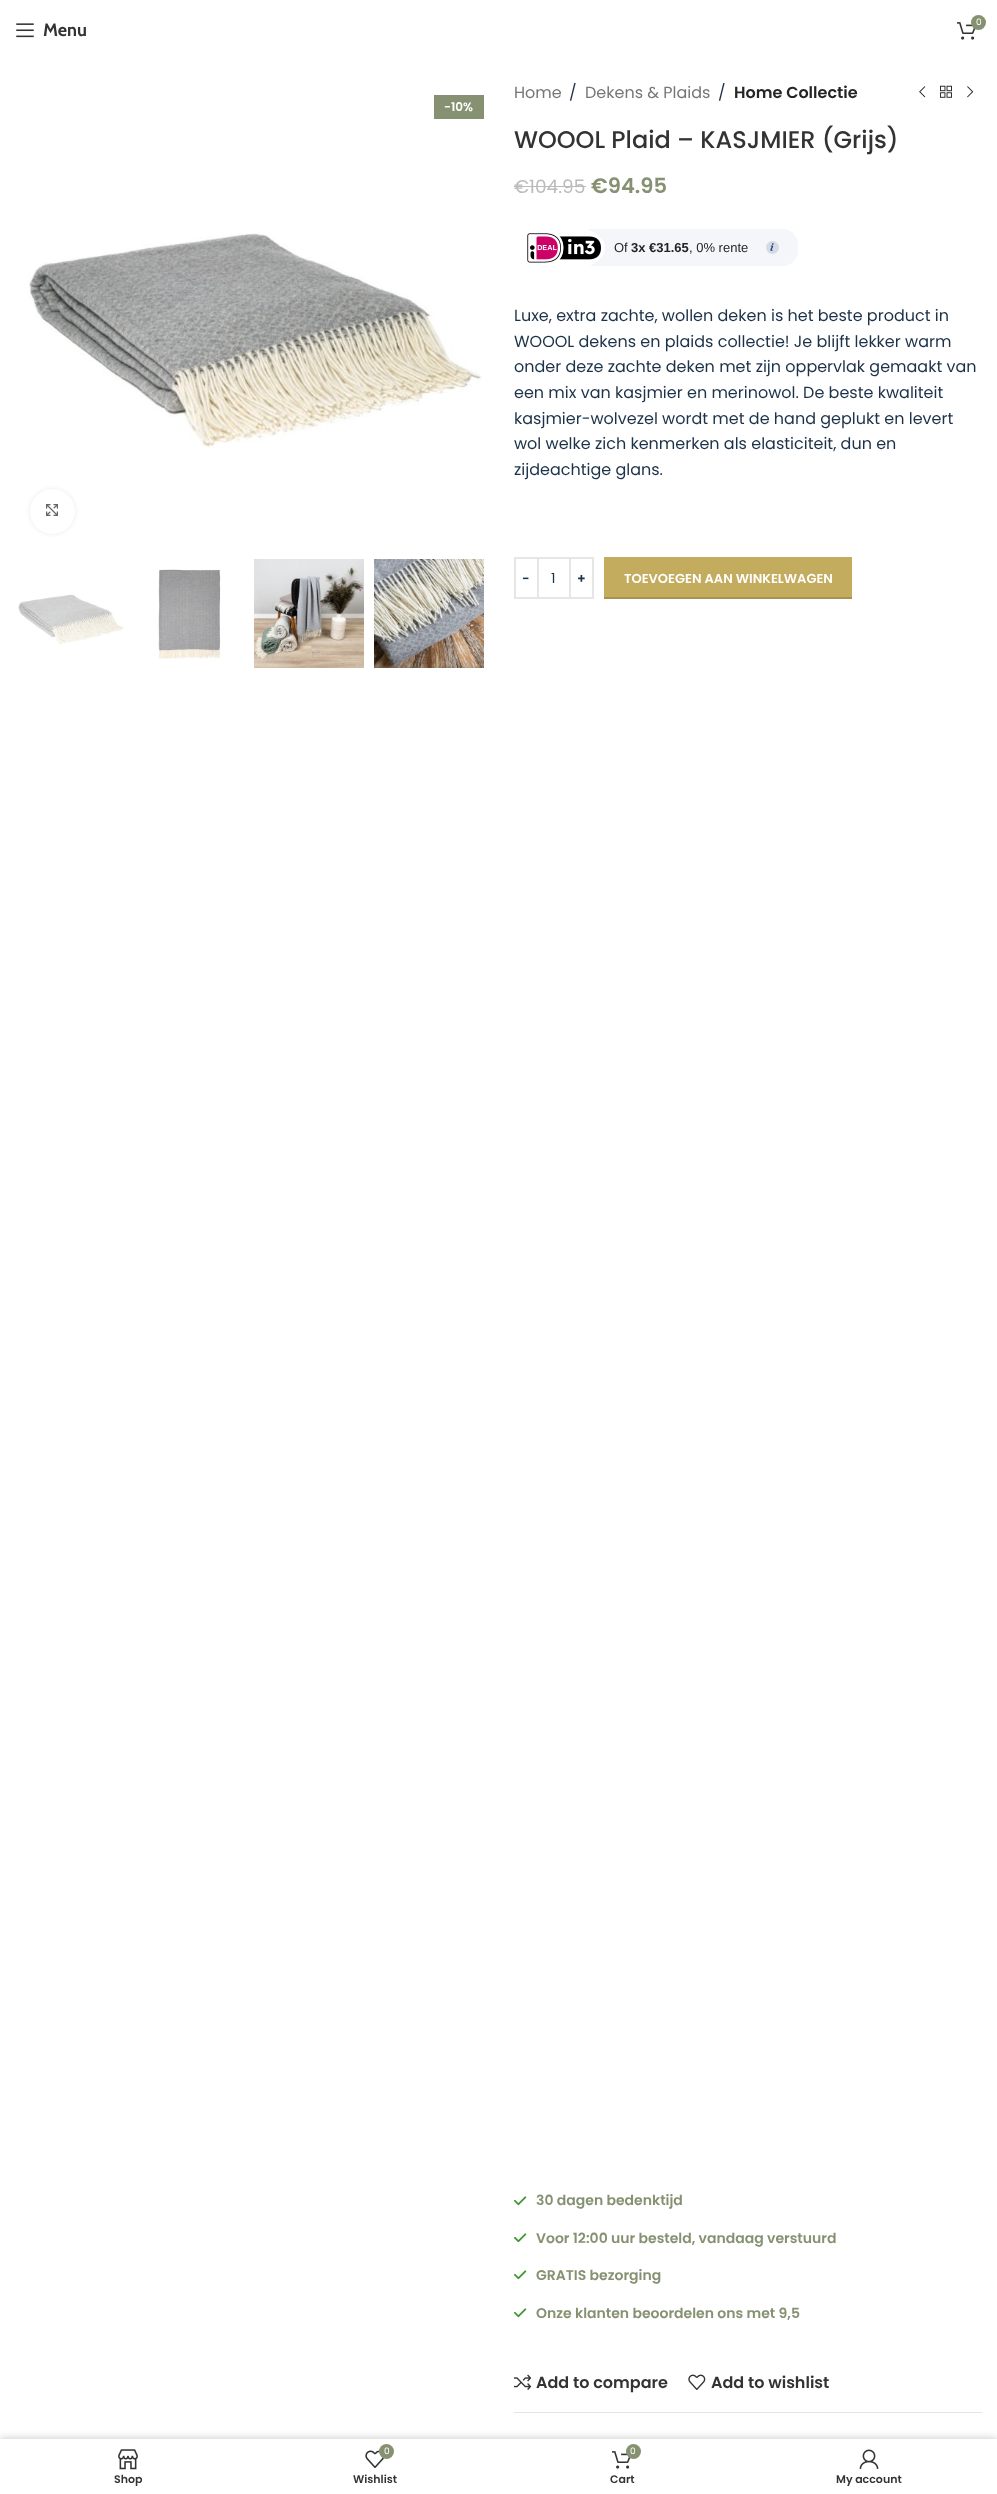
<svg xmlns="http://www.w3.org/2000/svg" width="997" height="2494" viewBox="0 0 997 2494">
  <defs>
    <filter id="blur1" x="-50%" y="-200%" width="200%" height="500%"><feGaussianBlur stdDeviation="2.5"/></filter>
    <filter id="blur2" x="-50%" y="-200%" width="200%" height="500%"><feGaussianBlur stdDeviation="4.5"/></filter>
  </defs>
  <rect width="100%" height="100%" fill="#ffffff"/>
  <image x="957" y="22" width="19" height="18" href="img1.png"/>
  <circle cx="978.5" cy="22.5" r="7.5" fill="#859171"/>
  <text x="976" y="25" font-family="Poppins" font-size="9" fill="#ffffff">0</text>
  <image x="16" y="23" width="18" height="15" href="img2.png"/>
  <text x="43" y="36" font-family="Cabin" font-size="18" font-weight="bold" fill="#333333">Menu</text>
  <rect x="434" y="95" width="50" height="24" fill="#859171"/>
  <text x="444" y="111" font-family="Poppins" font-size="12" font-weight="600" fill="#ffffff">-10%</text>
  <image x="28" y="233" width="454" height="216" href="img3.png"/>
  <rect x="30" y="489" width="45" height="45" rx="22.5" fill="#000000" fill-opacity="0.08" filter="url(#blur1)"/>
  <circle cx="52.5" cy="511.5" r="22.5" fill="#ffffff"/>
  <image x="46" y="504" width="12" height="12" href="img4.png"/>
  <image x="18" y="594" width="106" height="51" href="img5.png"/>
  <image x="158" y="569" width="63" height="90" href="img6.png"/>
  <image x="254" y="559" width="110" height="109" href="img7.png"/>
  <image x="374" y="559" width="110" height="109" href="img8.png"/>
  <text x="514" y="98" font-family="Poppins" font-size="16" fill="#767676">Home</text>
  <text x="569" y="98" font-family="Poppins" font-size="16" fill="#1c3249">/</text>
  <text x="585" y="98" font-family="Poppins" font-size="16" fill="#767676">Dekens &amp; Plaids</text>
  <text x="718" y="98" font-family="Poppins" font-size="16" fill="#1c3249">/</text>
  <text x="734" y="98" font-family="Poppins" font-size="16" font-weight="600" fill="#242424">Home Collectie</text>
  <image x="919" y="86" width="7" height="12" href="img9.png"/>
  <image x="940" y="85" width="12" height="13" href="img10.png"/>
  <image x="967" y="86" width="7" height="12" href="img11.png"/>
  <text x="514" y="148" font-family="Poppins" font-size="24" font-weight="500" fill="#333333">WOOOL Plaid – KASJMIER (Grijs)</text>
  <text x="514" y="193" font-family="Poppins" font-size="18.5" fill="#bbbbbb">€104.95</text>
  <rect x="514" y="186" width="72" height="1" fill="#bbbbbb"/>
  <text x="591" y="193" font-family="Poppins" font-size="21" font-weight="600" fill="#859171">€94.95</text>
  <path d="M534 229H783C791 229 798 236 798 244V251C798 259 791 266 783 266H534C527 266 522 259 522 251V244C522 236 527 229 534 229Z" fill="#f4f6f9"/>
  <ellipse cx="558" cy="248" rx="47" ry="24" fill="#ffffff"/>
  <path d="M558 226C583 226 603 236 603 248C603 260 583 270 558 270C533 270 513 260 513 248C513 236 533 226 558 226Z" fill="none" stroke="#ffffff" stroke-width="4"/>
  <image x="527" y="233" width="74" height="30" href="img12.png"/>
  <text x="614" y="252" font-family="Liberation Sans" font-size="13" fill="#242424">Of</text>
  <text x="631" y="252" font-family="Liberation Sans" font-size="13" font-weight="bold" fill="#242424">3x €31.65</text>
  <text x="689" y="252" font-family="Liberation Sans" font-size="13" fill="#242424">, 0% rente</text>
  <circle cx="772.5" cy="247.5" r="6.5" fill="#d5dbe7"/>
  <image x="770" y="243" width="4" height="8" href="img13.png"/>
  <text x="514" y="321" font-family="Poppins" font-size="16" fill="#1c3249">Luxe, extra zachte, wollen deken is het beste product in</text>
  <text x="514" y="347" font-family="Poppins" font-size="16" fill="#1c3249">WOOOL dekens en plaids collectie! Je blijft lekker warm</text>
  <text x="514" y="372" font-family="Poppins" font-size="16" fill="#1c3249">onder deze zachte deken met zijn oppervlak gemaakt van</text>
  <text x="514" y="398" font-family="Poppins" font-size="16" fill="#1c3249">een mix van kasjmier en merinowol. De beste kwaliteit</text>
  <text x="514" y="424" font-family="Poppins" font-size="16" fill="#1c3249">kasjmier-wolvezel wordt met de hand geplukt en levert</text>
  <text x="514" y="449" font-family="Poppins" font-size="16" fill="#1c3249">wol welke zich kenmerken als elasticiteit, dun en</text>
  <text x="514" y="475" font-family="Poppins" font-size="16" fill="#1c3249">zijdeachtige glans.</text>
  <rect x="515" y="558" width="23" height="40" fill="none" stroke="#e6e6e6" stroke-width="2"/>
  <text x="522" y="583" font-family="Poppins" font-size="13" font-weight="600" fill="#1c3249">-</text>
  <rect x="539" y="557" width="30" height="2" fill="#e6e6e6"/>
  <rect x="539" y="597" width="30" height="2" fill="#e6e6e6"/>
  <text x="551" y="583" font-family="Poppins" font-size="14" fill="#1c3249">1</text>
  <rect x="570" y="558" width="23" height="40" fill="none" stroke="#e6e6e6" stroke-width="2"/>
  <text x="577" y="583" font-family="Poppins" font-size="13" font-weight="600" fill="#1c3249">+</text>
  <rect x="604" y="557" width="248" height="40" fill="#c4ac5e"/>
  <rect x="604" y="597" width="248" height="2" fill="#a79250"/>
  <text x="624" y="583" font-family="Poppins" font-size="13" font-weight="600" fill="#ffffff">TOEVOEGEN AAN WINKELWAGEN</text>
  <image x="514" y="2196" width="13" height="10" href="img14.png"/>
  <text x="536" y="2205" font-family="Poppins" font-size="14" font-weight="600" fill="#859171">30 dagen bedenktijd</text>
  <image x="514" y="2233" width="13" height="10" href="img14.png"/>
  <text x="536" y="2243" font-family="Poppins" font-size="14" font-weight="600" fill="#859171">Voor 12:00 uur besteld, vandaag verstuurd</text>
  <image x="514" y="2270" width="13" height="10" href="img14.png"/>
  <text x="536" y="2280" font-family="Poppins" font-size="14" font-weight="600" fill="#859171">GRATIS bezorging</text>
  <image x="514" y="2308" width="13" height="10" href="img14.png"/>
  <text x="536" y="2318" font-family="Poppins" font-size="14" font-weight="600" fill="#859171">Onze klanten beoordelen ons met 9,5</text>
  <image x="514" y="2374" width="18" height="16" href="img15.png"/>
  <text x="536" y="2388" font-family="Poppins" font-size="16" font-weight="600" fill="#333333">Add to compare</text>
  <image x="688" y="2374" width="18" height="16" href="img16.png"/>
  <text x="711" y="2388" font-family="Poppins" font-size="16" font-weight="600" fill="#333333">Add to wishlist</text>
  <rect x="514" y="2412" width="468" height="1" fill="#e4e4e4"/>
  <rect x="0" y="2439" width="997" height="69" fill="#000000" fill-opacity="0.12" filter="url(#blur2)"/>
  <rect x="0" y="2439" width="997" height="55" fill="#000000" fill-opacity="0.12" filter="url(#blur2)"/>
  <rect x="0" y="2439" width="997" height="55" fill="#ffffff"/>
  <image x="118" y="2449" width="20" height="21" href="img17.png"/>
  <text x="114" y="2483" font-family="Poppins" font-size="11" font-weight="600" fill="#333333">Shop</text>
  <image x="365" y="2450" width="20" height="18" href="img18.png"/>
  <circle cx="386.5" cy="2451.5" r="7.5" fill="#859171"/>
  <text x="384" y="2454" font-family="Poppins" font-size="9" fill="#ffffff">0</text>
  <text x="353" y="2483" font-family="Poppins" font-size="11" font-weight="600" fill="#333333">Wishlist</text>
  <image x="612" y="2451" width="19" height="18" href="img1.png"/>
  <circle cx="633.5" cy="2451.5" r="7.5" fill="#859171"/>
  <text x="630" y="2454" font-family="Poppins" font-size="9" fill="#ffffff">0</text>
  <text x="610" y="2483" font-family="Poppins" font-size="11" font-weight="600" fill="#333333">Cart</text>
  <image x="859" y="2449" width="20" height="20" href="img19.png"/>
  <text x="836" y="2483" font-family="Poppins" font-size="11" font-weight="600" fill="#333333">My account</text>
</svg>
